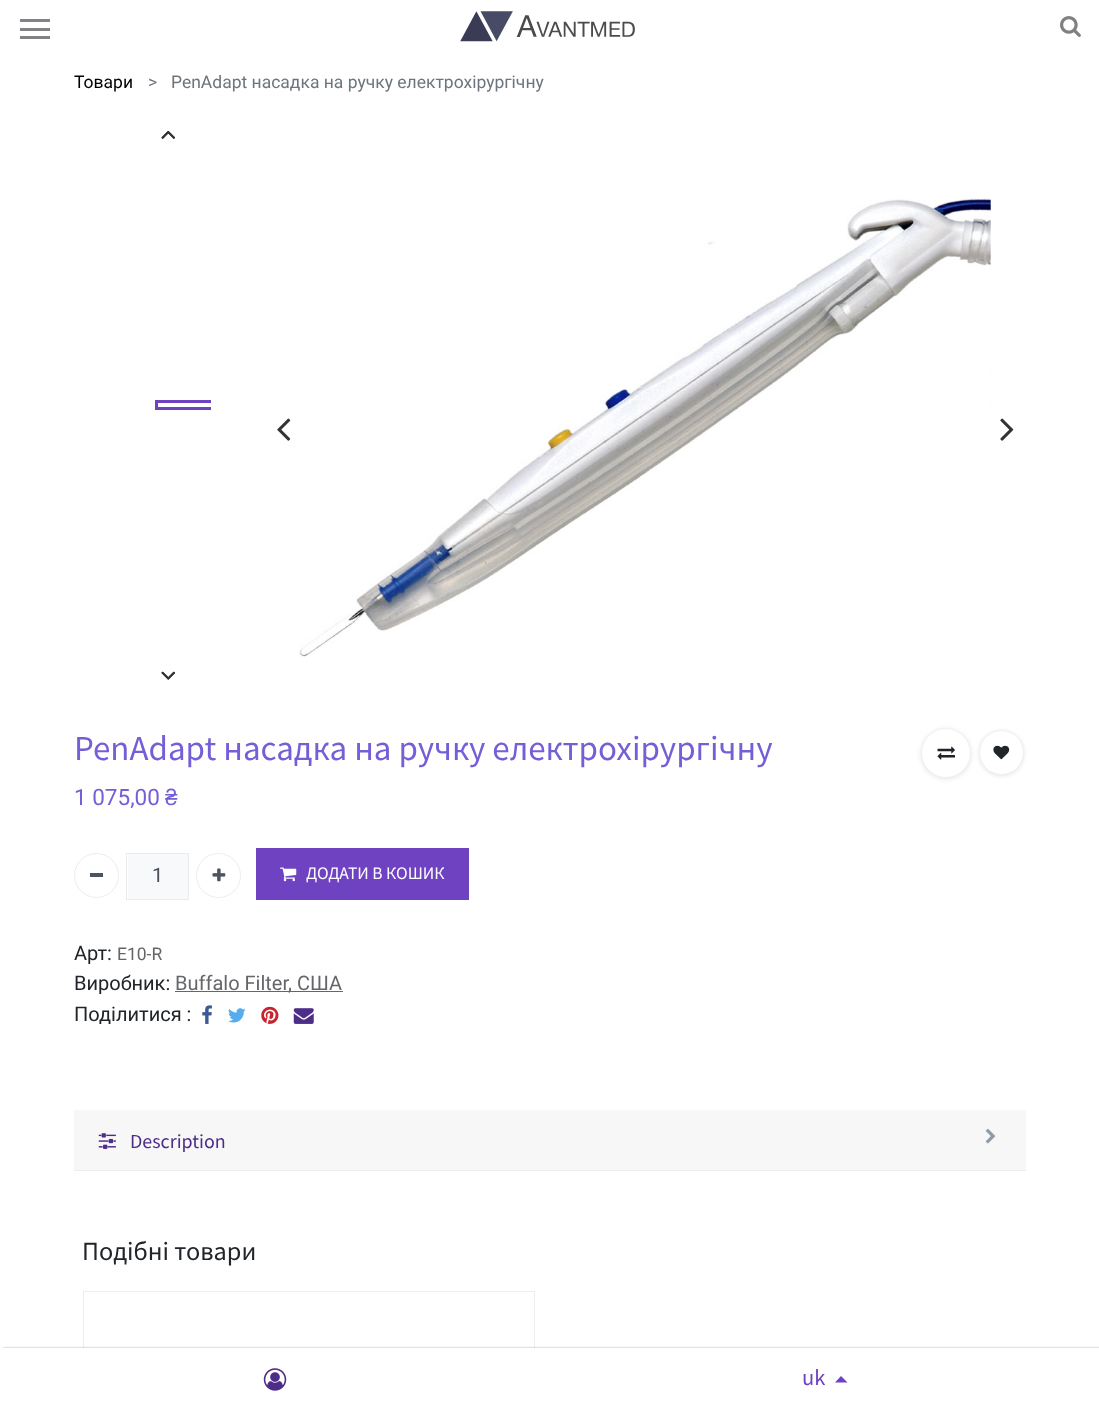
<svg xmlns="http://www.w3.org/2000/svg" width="1099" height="1409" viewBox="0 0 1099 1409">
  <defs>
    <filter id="blur1" x="-50%" y="-200%" width="200%" height="500%"><feGaussianBlur stdDeviation="2.5"/></filter>
    <filter id="blur2" x="-50%" y="-200%" width="200%" height="500%"><feGaussianBlur stdDeviation="2"/></filter>
    <filter id="blur3" x="-50%" y="-200%" width="200%" height="500%"><feGaussianBlur stdDeviation="1"/></filter>
  </defs>
  <rect width="100%" height="100%" fill="#ffffff"/>
  <text x="74" y="88" font-family="Roboto" font-size="17.5" fill="#000000">Товари</text>
  <text x="148" y="88" font-family="Roboto" font-size="17.5" fill="#6c757d">&gt;</text>
  <text x="171" y="88" font-family="Roboto" font-size="17.5" fill="#6c757d">PenAdapt насадка на ручку електрохірургічну</text>
  <image x="161" y="131" width="14" height="8" href="img1.png"/>
  <image x="161" y="671" width="14" height="9" href="img2.png"/>
  <image x="161" y="131" width="14" height="8" href="img3.png"/>
  <image x="161" y="671" width="14" height="9" href="img4.png"/>
  <image x="161" y="131" width="14" height="8" href="img5.png"/>
  <image x="161" y="671" width="14" height="9" href="img6.png"/>
  <path d="M155 400V410H211V407H158V403H211V400Z" fill="#6f42c1"/>
  <image x="299" y="198" width="692" height="459" href="img7.png"/>
  <image x="277" y="418" width="14" height="23" href="img8.png"/>
  <image x="1000" y="418" width="14" height="23" href="img9.png"/>
  <text x="74" y="760" font-family="Source Sans Pro" font-size="35" fill="#765ed6">PenAdapt насадка на ручку електрохірургічну</text>
  <rect x="921" y="729" width="50" height="50" rx="25" fill="#000000" fill-opacity="0.1" filter="url(#blur1)"/>
  <circle cx="946" cy="753" r="24.5" fill="#ffffff" stroke="#f0f0f0"/>
  <image x="937" y="746" width="18" height="14" href="img10.png"/>
  <rect x="979" y="731" width="45" height="45" rx="22.5" fill="#000000" fill-opacity="0.1" filter="url(#blur2)"/>
  <circle cx="1001.5" cy="752.5" r="22" fill="#ffffff" stroke="#f0f0f0"/>
  <image x="993" y="745" width="17" height="15" href="img11.png"/>
  <text x="74" y="805" font-family="Roboto" font-size="22.5" fill="#765ed6">1 075,00</text>
  <text x="165" y="805" font-family="Liberation Sans" font-size="22.5" fill="#765ed6">₴</text>
  <circle cx="96.5" cy="875.5" r="22" fill="none" stroke="#ededed"/>
  <rect x="90" y="873" width="13" height="4" fill="#4c5462"/>
  <rect x="128" y="854" width="60" height="45" fill="#f8f9fa"/>
  <rect x="126.5" y="853.5" width="62" height="46" fill="none" stroke="#e9ecef"/>
  <text x="152" y="882" font-family="Roboto" font-size="20" fill="#495057">1</text>
  <circle cx="218.5" cy="875.5" r="22" fill="none" stroke="#ededed"/>
  <image x="212" y="868" width="14" height="14" href="img12.png"/>
  <rect x="256" y="848" width="213" height="52" fill="#6f42c1"/>
  <image x="280" y="867" width="17" height="15" href="img13.png"/>
  <text x="306" y="879" font-family="Source Sans Pro" font-size="17.5" fill="#ffffff">ДОДАТИ В КОШИК</text>
  <text x="74" y="960" font-family="Roboto" font-size="20" fill="#212529">Арт:</text>
  <text x="117" y="960" font-family="Roboto" font-size="17.5" fill="#646669">E10-R</text>
  <text x="74" y="990" font-family="Roboto" font-size="20" fill="#212529">Виробник:</text>
  <rect x="175" y="991" width="168" height="1" fill="#646669"/>
  <text x="175" y="990" font-family="Roboto" font-size="20" fill="#646669">Buffalo Filter, США</text>
  <text x="74" y="1021" font-family="Roboto" font-size="20" fill="#212529">Поділитися :</text>
  <image x="202" y="1005" width="10" height="19" href="img14.png"/>
  <image x="228" y="1008" width="18" height="15" href="img15.png"/>
  <image x="261" y="1006" width="18" height="18" href="img16.png"/>
  <image x="293" y="1008" width="21" height="16" href="img17.png"/>
  <rect x="74" y="1110" width="952" height="60" fill="#f7f7f7"/>
  <rect x="74" y="1170" width="952" height="1" fill="#ededed"/>
  <image x="98" y="1133" width="18" height="16" href="img18.png"/>
  <text x="130" y="1148" font-family="Source Sans Pro" font-size="20" fill="#4e2d89">Description</text>
  <image x="985" y="1128" width="11" height="16" href="img19.png"/>
  <text x="82" y="1260" font-family="Source Sans Pro" font-size="26.25" fill="#212529">Подібні товари</text>
  <rect x="83.5" y="1291.5" width="451" height="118" fill="none" stroke="#ededed"/>
  <rect x="20" y="19" width="30" height="3" fill="#828387"/>
  <rect x="20" y="28" width="30" height="3" fill="#828387"/>
  <rect x="20" y="36" width="30" height="3" fill="#828387"/>
  <image x="460" y="11" width="175" height="31" href="img20.png"/>
  <image x="1060" y="16" width="21" height="21" href="img21.png"/>
  <rect x="3" y="1348" width="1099" height="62" fill="#ababab" filter="url(#blur3)"/>
  <rect x="1" y="1348" width="1098" height="61" fill="#ffffff"/>
  <image x="263" y="1368" width="24" height="23" href="img22.png"/>
  <text x="802" y="1385" font-family="Source Sans Pro" font-size="22.5" fill="#6f42c1">uk</text>
  <path d="M847.5 1382.5H835L841 1376Z" fill="#6f42c1"/>
</svg>
